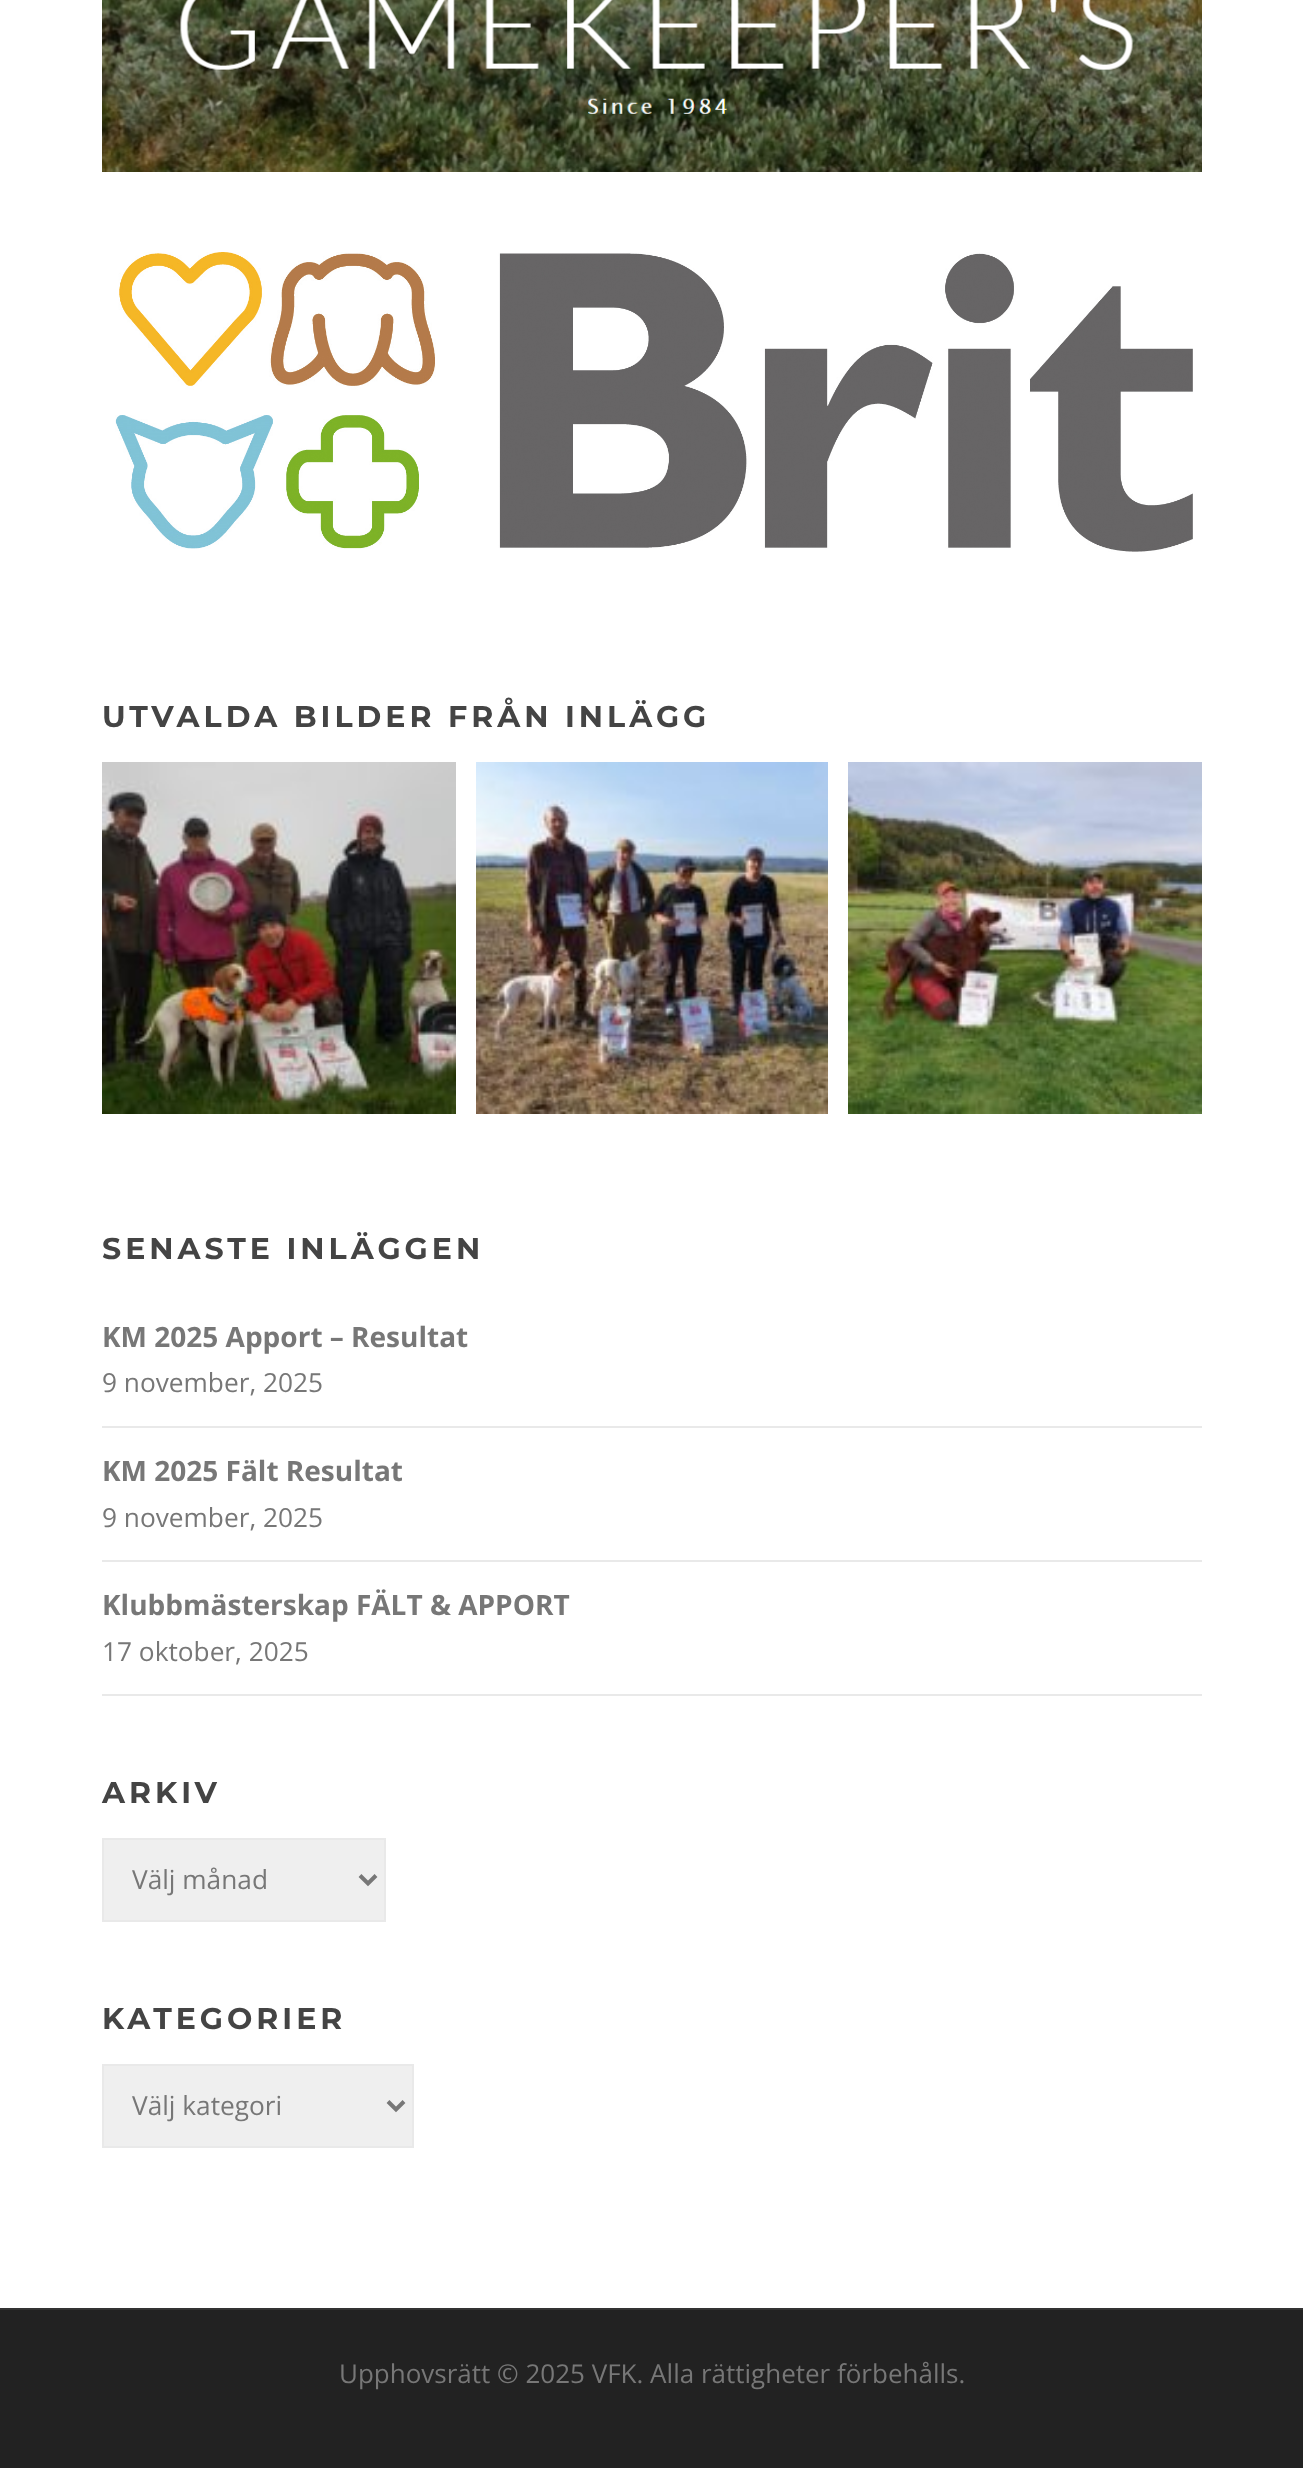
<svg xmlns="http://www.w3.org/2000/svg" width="1303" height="2468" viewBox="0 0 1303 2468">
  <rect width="100%" height="100%" fill="#ffffff"/>
  <image x="102" y="0" width="1100" height="172" href="img1.png"/>
  <image x="115" y="252" width="1078" height="300" href="img2.png"/>
  <text x="102" y="727" font-family="Montserrat" font-size="30" font-weight="bold" letter-spacing="4" fill="#444444">UTVALDA BILDER FRÅN INLÄGG</text>
  <image x="102" y="762" width="354" height="352" href="img3.png"/>
  <image x="476" y="762" width="352" height="352" href="img4.png"/>
  <image x="848" y="762" width="354" height="352" href="img5.png"/>
  <text x="102" y="1259" font-family="Montserrat" font-size="30" font-weight="bold" letter-spacing="4" fill="#444444">SENASTE INLÄGGEN</text>
  <rect x="102" y="1426" width="1100" height="2" fill="#e9e9e9"/>
  <text x="102" y="1347" font-family="Open Sans" font-size="28" font-weight="bold" fill="#777777">KM 2025 Apport – Resultat</text>
  <text x="102" y="1392" font-family="Open Sans" font-size="26.25" fill="#777777">9 november, 2025</text>
  <rect x="102" y="1560" width="1100" height="2" fill="#e9e9e9"/>
  <text x="102" y="1481" font-family="Open Sans" font-size="28" font-weight="bold" fill="#777777">KM 2025 Fält Resultat</text>
  <text x="102" y="1527" font-family="Open Sans" font-size="26.25" fill="#777777">9 november, 2025</text>
  <rect x="102" y="1694" width="1100" height="2" fill="#e9e9e9"/>
  <text x="102" y="1615" font-family="Open Sans" font-size="28" font-weight="bold" fill="#777777">Klubbmästerskap FÄLT &amp; APPORT</text>
  <text x="102" y="1661" font-family="Open Sans" font-size="26.25" fill="#777777">17 oktober, 2025</text>
  <text x="102" y="1803" font-family="Montserrat" font-size="30" font-weight="bold" letter-spacing="4" fill="#444444">ARKIV</text>
  <rect x="103" y="1839" width="282" height="82" fill="#efefef" stroke="#e9e9e9" stroke-width="2"/>
  <path d="M360 1875.5L368 1883.5L376 1875.5" fill="none" stroke="#777777" stroke-width="4"/>
  <text x="132" y="1889" font-family="Open Sans" font-size="26.25" fill="#777777">Välj månad</text>
  <text x="102" y="2029" font-family="Montserrat" font-size="30" font-weight="bold" letter-spacing="4" fill="#444444">KATEGORIER</text>
  <rect x="103" y="2065" width="310" height="82" fill="#efefef" stroke="#e9e9e9" stroke-width="2"/>
  <path d="M388 2101.5L396 2109.5L404 2101.5" fill="none" stroke="#777777" stroke-width="4"/>
  <text x="132" y="2115" font-family="Open Sans" font-size="26.25" fill="#777777">Välj kategori</text>
  <rect x="0" y="2310" width="1303" height="158" fill="#222222"/>
  <rect x="0" y="2308" width="1303" height="2" fill="#333333"/>
  <text x="339" y="2383" font-family="Open Sans" font-size="26" fill="#777777">Upphovsrätt © 2025 VFK. Alla rättigheter förbehålls.</text>
</svg>
